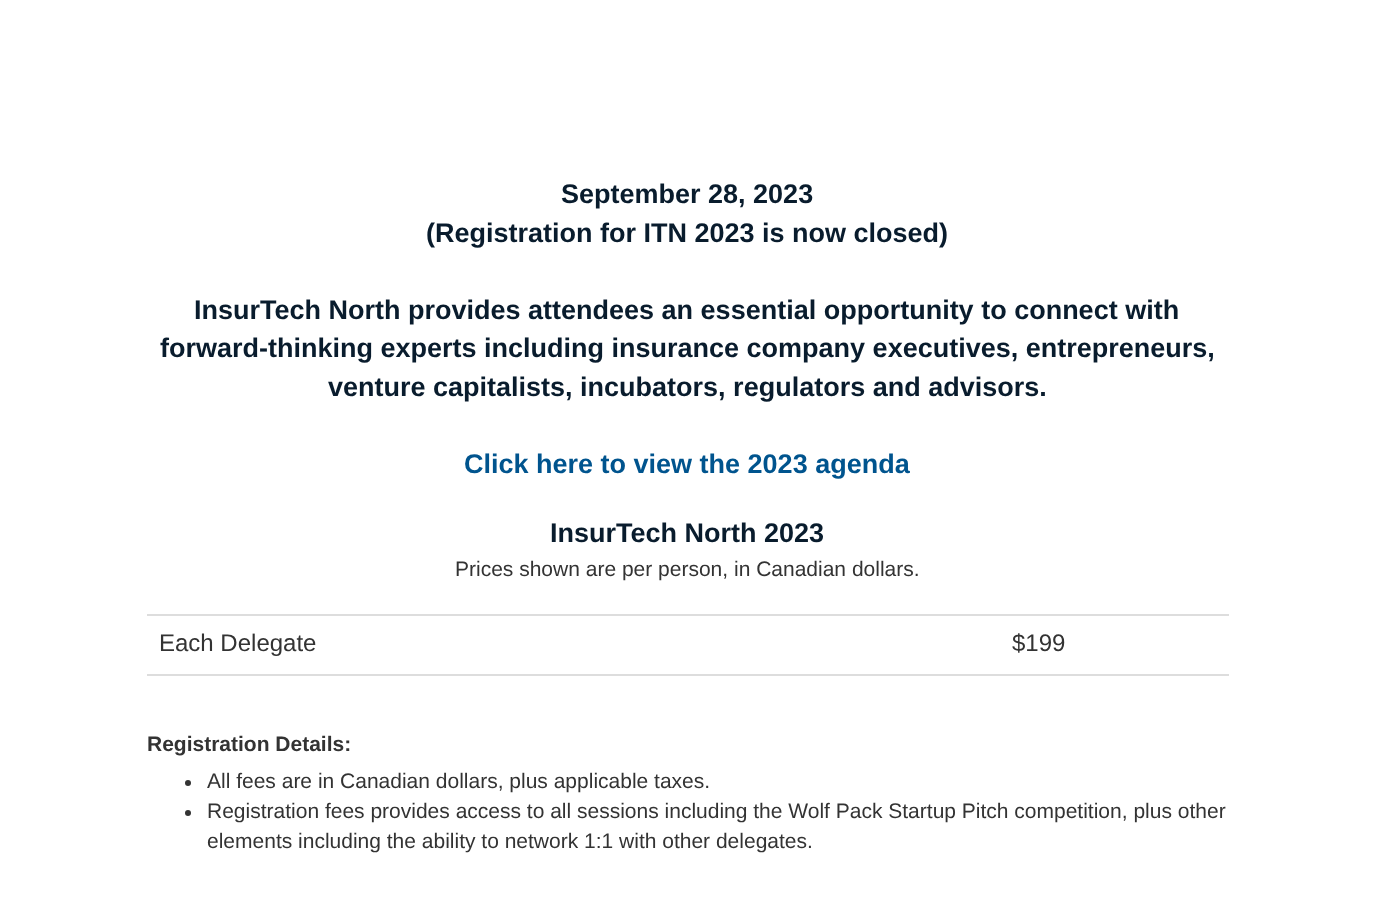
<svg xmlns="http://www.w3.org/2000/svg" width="1373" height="904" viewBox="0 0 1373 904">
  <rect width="100%" height="100%" fill="#ffffff"/>
  <text x="561" y="203" font-family="Liberation Sans" font-size="27" font-weight="bold" fill="#091c2d">September 28, 2023</text>
  <text x="426" y="242" font-family="Liberation Sans" font-size="27" font-weight="bold" fill="#091c2d">(Registration for ITN 2023 is now closed)</text>
  <text x="194" y="319" font-family="Liberation Sans" font-size="27" font-weight="bold" fill="#091c2d">InsurTech North provides attendees an essential opportunity to connect with</text>
  <text x="160" y="357" font-family="Liberation Sans" font-size="27" font-weight="bold" fill="#091c2d">forward-thinking experts including insurance company executives, entrepreneurs,</text>
  <text x="328" y="396" font-family="Liberation Sans" font-size="27" font-weight="bold" fill="#091c2d">venture capitalists, incubators, regulators and advisors.</text>
  <text x="464" y="473" font-family="Liberation Sans" font-size="27" font-weight="bold" fill="#00548e">Click here to view the 2023 agenda</text>
  <text x="550" y="542" font-family="Liberation Sans" font-size="27" font-weight="bold" fill="#091c2d">InsurTech North 2023</text>
  <text x="455" y="576" font-family="Liberation Sans" font-size="21" fill="#333333">Prices shown are per person, in Canadian dollars.</text>
  <rect x="147" y="614" width="1082" height="2" fill="#dddddd"/>
  <text x="159" y="651" font-family="Liberation Sans" font-size="24" fill="#333333">Each Delegate</text>
  <text x="1012" y="651" font-family="Liberation Sans" font-size="24" fill="#333333">$199</text>
  <rect x="147" y="674" width="1082" height="2" fill="#dddddd"/>
  <text x="147" y="751" font-family="Liberation Sans" font-size="21" font-weight="bold" fill="#333333">Registration Details:</text>
  <circle cx="188" cy="783" r="3" fill="#333333"/>
  <text x="207" y="788" font-family="Liberation Sans" font-size="21" fill="#333333">All fees are in Canadian dollars, plus applicable taxes.</text>
  <circle cx="188" cy="813" r="3" fill="#333333"/>
  <text x="207" y="818" font-family="Liberation Sans" font-size="21" fill="#333333">Registration fees provides access to all sessions including the Wolf Pack Startup Pitch competition, plus other</text>
  <text x="207" y="848" font-family="Liberation Sans" font-size="21" fill="#333333">elements including the ability to network 1:1 with other delegates.</text>
</svg>
